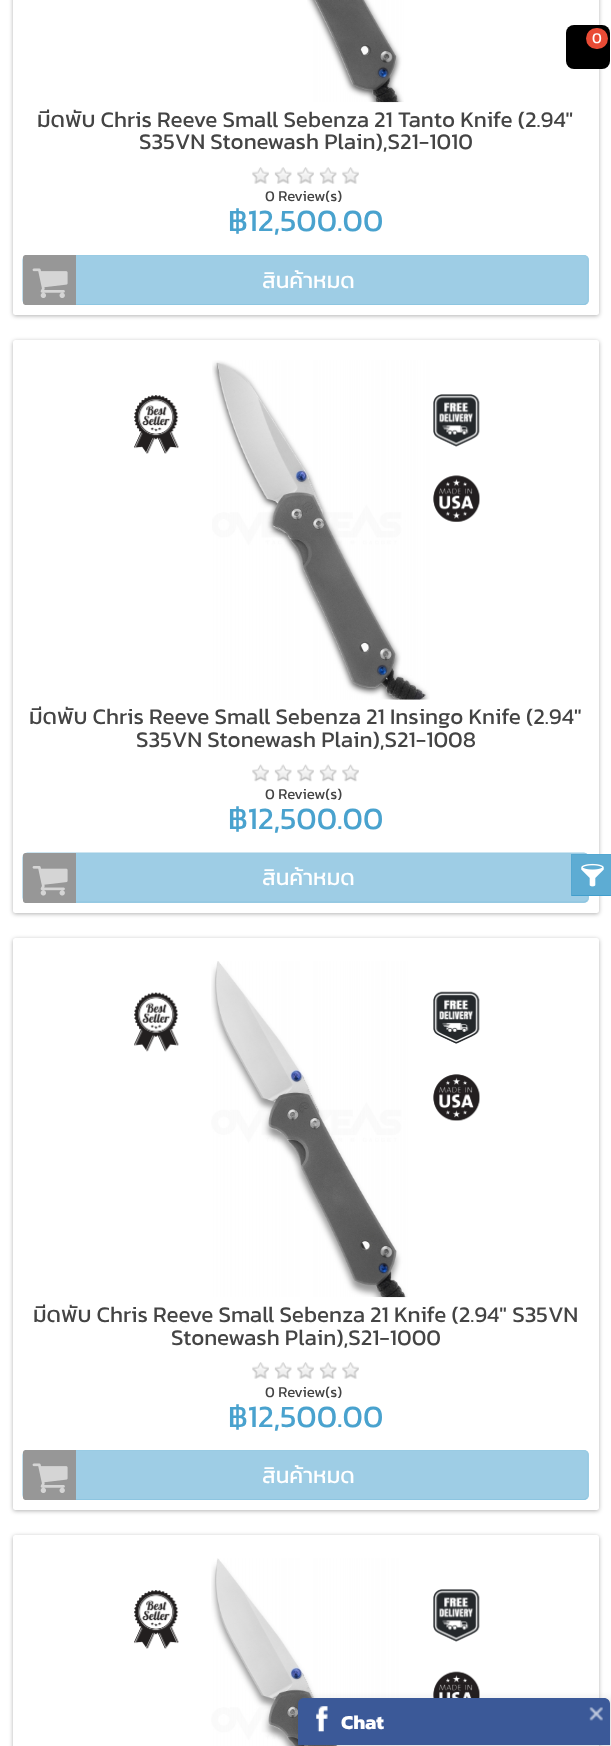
<svg xmlns="http://www.w3.org/2000/svg" width="611" height="1746" viewBox="0 0 611 1746">
  <defs>
    <filter id="blur1" x="-50%" y="-200%" width="200%" height="500%"><feGaussianBlur stdDeviation="2"/></filter>
    <filter id="blur2" x="-50%" y="-200%" width="200%" height="500%"><feGaussianBlur stdDeviation="4"/></filter>
  </defs>
  <rect width="100%" height="100%" fill="#ffffff"/>
  <rect x="13" y="-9" width="586" height="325" rx="2.5" fill="#000000" fill-opacity="0.3" filter="url(#blur1)"/>
  <rect x="13" y="-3" width="586" height="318" rx="2.5" fill="#ffffff"/>
  <rect x="566" y="25" width="44" height="44" rx="8" fill="#000000"/>
  <rect x="586" y="28" width="22" height="21" rx="10.5" fill="#e94b35"/>
  <text x="592" y="43" font-family="Kanit" font-size="15" fill="#ffffff">0</text>
  <image x="307" y="0" width="97" height="103" href="img1.png"/>
  <text x="37" y="127" font-family="Kanit" font-size="22.5" fill="#444444">มีดพับ Chris Reeve Small Sebenza 21 Tanto Knife (2.94"</text>
  <text x="139" y="149" font-family="Kanit" font-size="22.5" fill="#444444">S35VN Stonewash Plain),S21-1010</text>
  <image x="252" y="167" width="17" height="17" href="img2.png"/>
  <image x="274" y="167" width="18" height="17" href="img3.png"/>
  <image x="297" y="167" width="17" height="17" href="img2.png"/>
  <image x="319" y="167" width="18" height="17" href="img3.png"/>
  <image x="342" y="167" width="17" height="17" href="img2.png"/>
  <text x="265" y="201" font-family="Kanit" font-size="15" fill="#444444">0 Review(s)</text>
  <text x="228" y="231" font-family="Kanit" font-size="31.25" fill="#49a2ce">฿12,500.00</text>
  <rect x="23" y="255" width="566" height="50" rx="5" fill="#9ecde5"/>
  <path d="M587 303C586 304 585 304.5 584 304.5H27.5C26.5 304.5 25 304 24.5 303" fill="none" stroke="#8dc5e0" stroke-width="1.2"/>
  <path d="M24.5 303C23.5 302.5 23 301 23 300V260C23 259 23.5 257.5 24.5 257C25 256 26.5 255.5 27.5 255.5H584C585 255.5 586 256 587 257C587.5 257.5 588 259 588 260V300C588 301 587.5 302.5 587 303" fill="none" stroke="#99cbe3" stroke-width="1.2"/>
  <path d="M25.5 255H76V305H25.5C24 305 23 304 23 302.5V257.5C23 256 24 255 25.5 255Z" fill="#979797"/>
  <image x="32" y="268" width="36" height="30" href="img4.png"/>
  <text x="262" y="288" font-family="Kanit" font-size="22.5" fill="#ffffff">สินค้าหมด</text>
  <rect x="13" y="341" width="586" height="573" rx="2.5" fill="#000000" fill-opacity="0.3" filter="url(#blur1)"/>
  <rect x="13" y="340" width="586" height="573" rx="2.5" fill="#ffffff"/>
  <image x="212" y="360" width="218" height="340" href="img5.png"/>
  <image x="433" y="394" width="47" height="53" href="img6.png"/>
  <image x="134" y="395" width="45" height="59" href="img7.png"/>
  <image x="433" y="394" width="47" height="53" href="img8.png"/>
  <image x="134" y="395" width="45" height="59" href="img9.png"/>
  <image x="433" y="475" width="47" height="47" href="img10.png"/>
  <image x="433" y="475" width="47" height="47" href="img11.png"/>
  <text x="29" y="724" font-family="Kanit" font-size="22.5" fill="#444444">มีดพับ Chris Reeve Small Sebenza 21 Insingo Knife (2.94"</text>
  <text x="136" y="747" font-family="Kanit" font-size="22.5" fill="#444444">S35VN Stonewash Plain),S21-1008</text>
  <image x="252" y="764" width="17" height="18" href="img12.png"/>
  <image x="274" y="764" width="18" height="18" href="img13.png"/>
  <image x="297" y="764" width="17" height="18" href="img12.png"/>
  <image x="319" y="764" width="18" height="18" href="img13.png"/>
  <image x="342" y="764" width="17" height="18" href="img12.png"/>
  <text x="265" y="799" font-family="Kanit" font-size="15" fill="#444444">0 Review(s)</text>
  <text x="228" y="829" font-family="Kanit" font-size="31.25" fill="#49a2ce">฿12,500.00</text>
  <rect x="23" y="853" width="566" height="50" rx="5" fill="#9ecde5"/>
  <path d="M587 900.5C586 901.5 585 902 584 902H27.5C26.5 902 25 901.5 24.5 900.5" fill="none" stroke="#8dc5e0" stroke-width="1.2"/>
  <path d="M24.5 900.5C23.5 900 23 898.5 23 897.5V857.5C23 856.5 23.5 855 24.5 854.5C25 853.5 26.5 853 27.5 853H584C585 853 586 853.5 587 854.5C587.5 855 588 856.5 588 857.5V897.5C588 898.5 587.5 900 587 900.5" fill="none" stroke="#99cbe3" stroke-width="1.2"/>
  <path d="M25.5 853H76V903H25.5C24 903 23 902 23 900.5V855.5C23 854 24 853 25.5 853Z" fill="#979797"/>
  <image x="32" y="866" width="36" height="30" href="img14.png"/>
  <text x="262" y="885" font-family="Kanit" font-size="22.5" fill="#ffffff">สินค้าหมด</text>
  <rect x="13" y="939" width="586" height="572" rx="2.5" fill="#000000" fill-opacity="0.3" filter="url(#blur1)"/>
  <rect x="13" y="938" width="586" height="572" rx="2.5" fill="#ffffff"/>
  <image x="211" y="961" width="197" height="337" href="img15.png"/>
  <image x="433" y="991" width="47" height="53" href="img16.png"/>
  <image x="134" y="992" width="45" height="60" href="img17.png"/>
  <image x="433" y="991" width="47" height="53" href="img18.png"/>
  <image x="134" y="992" width="45" height="60" href="img19.png"/>
  <image x="433" y="1074" width="47" height="47" href="img20.png"/>
  <image x="433" y="1074" width="47" height="47" href="img21.png"/>
  <text x="33" y="1322" font-family="Kanit" font-size="22.5" fill="#444444">มีดพับ Chris Reeve Small Sebenza 21 Knife (2.94" S35VN</text>
  <text x="171" y="1345" font-family="Kanit" font-size="22.5" fill="#444444">Stonewash Plain),S21-1000</text>
  <image x="252" y="1362" width="17" height="17" href="img2.png"/>
  <image x="274" y="1362" width="18" height="17" href="img3.png"/>
  <image x="297" y="1362" width="17" height="17" href="img2.png"/>
  <image x="319" y="1362" width="18" height="17" href="img3.png"/>
  <image x="342" y="1362" width="17" height="17" href="img2.png"/>
  <text x="265" y="1397" font-family="Kanit" font-size="15" fill="#444444">0 Review(s)</text>
  <text x="228" y="1427" font-family="Kanit" font-size="31.25" fill="#49a2ce">฿12,500.00</text>
  <rect x="23" y="1450" width="566" height="50" rx="5" fill="#9ecde5"/>
  <path d="M587 1498C586 1499 585 1499.5 584 1499.5H27.5C26.5 1499.5 25 1499 24.5 1498" fill="none" stroke="#8dc5e0" stroke-width="1.2"/>
  <path d="M24.5 1498C23.5 1497.5 23 1496 23 1495V1455C23 1454 23.5 1452.5 24.5 1452C25 1451 26.5 1450.5 27.5 1450.5H584C585 1450.5 586 1451 587 1452C587.5 1452.5 588 1454 588 1455V1495C588 1496 587.5 1497.5 587 1498" fill="none" stroke="#99cbe3" stroke-width="1.2"/>
  <path d="M25.5 1450H76V1500H25.5C24 1500 23 1499 23 1497.5V1452.5C23 1451 24 1450 25.5 1450Z" fill="#979797"/>
  <image x="32" y="1463" width="36" height="30" href="img4.png"/>
  <text x="262" y="1483" font-family="Kanit" font-size="22.5" fill="#ffffff">สินค้าหมด</text>
  <rect x="13" y="1536" width="586" height="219" rx="2.5" fill="#000000" fill-opacity="0.3" filter="url(#blur1)"/>
  <rect x="13" y="1535" width="586" height="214" rx="2.5" fill="#ffffff"/>
  <image x="211" y="1558" width="189" height="188" href="img22.png"/>
  <image x="433" y="1589" width="47" height="53" href="img6.png"/>
  <image x="134" y="1590" width="45" height="59" href="img7.png"/>
  <image x="433" y="1589" width="47" height="53" href="img8.png"/>
  <image x="134" y="1590" width="45" height="59" href="img9.png"/>
  <image x="433" y="1671" width="47" height="27" href="img23.png"/>
  <image x="433" y="1671" width="47" height="27" href="img24.png"/>
  <rect x="572" y="855" width="39" height="40" fill="#5dacd3"/>
  <rect x="571" y="854" width="40" height="1" fill="#55a8d1"/>
  <rect x="571" y="895" width="40" height="1" fill="#419ecc"/>
  <rect x="571" y="854" width="1" height="42" fill="#55a8d1"/>
  <image x="581" y="863" width="23" height="24" href="img25.png"/>
  <rect x="293" y="1698" width="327" height="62" rx="14" fill="#000000" fill-opacity="0.09" filter="url(#blur2)"/>
  <path d="M304 1698H604C607.5 1698 610 1700.5 610 1704V1745H298V1704C298 1700.5 300.5 1698 304 1698Z" fill="#3b5998"/>
  <image x="316" y="1706" width="12" height="26" href="img26.png"/>
  <text x="341" y="1729" font-family="Kanit" font-size="20" font-weight="bold" fill="#ffffff">Chat</text>
  <image x="589" y="1707" width="14" height="14" href="img27.png"/>
</svg>
